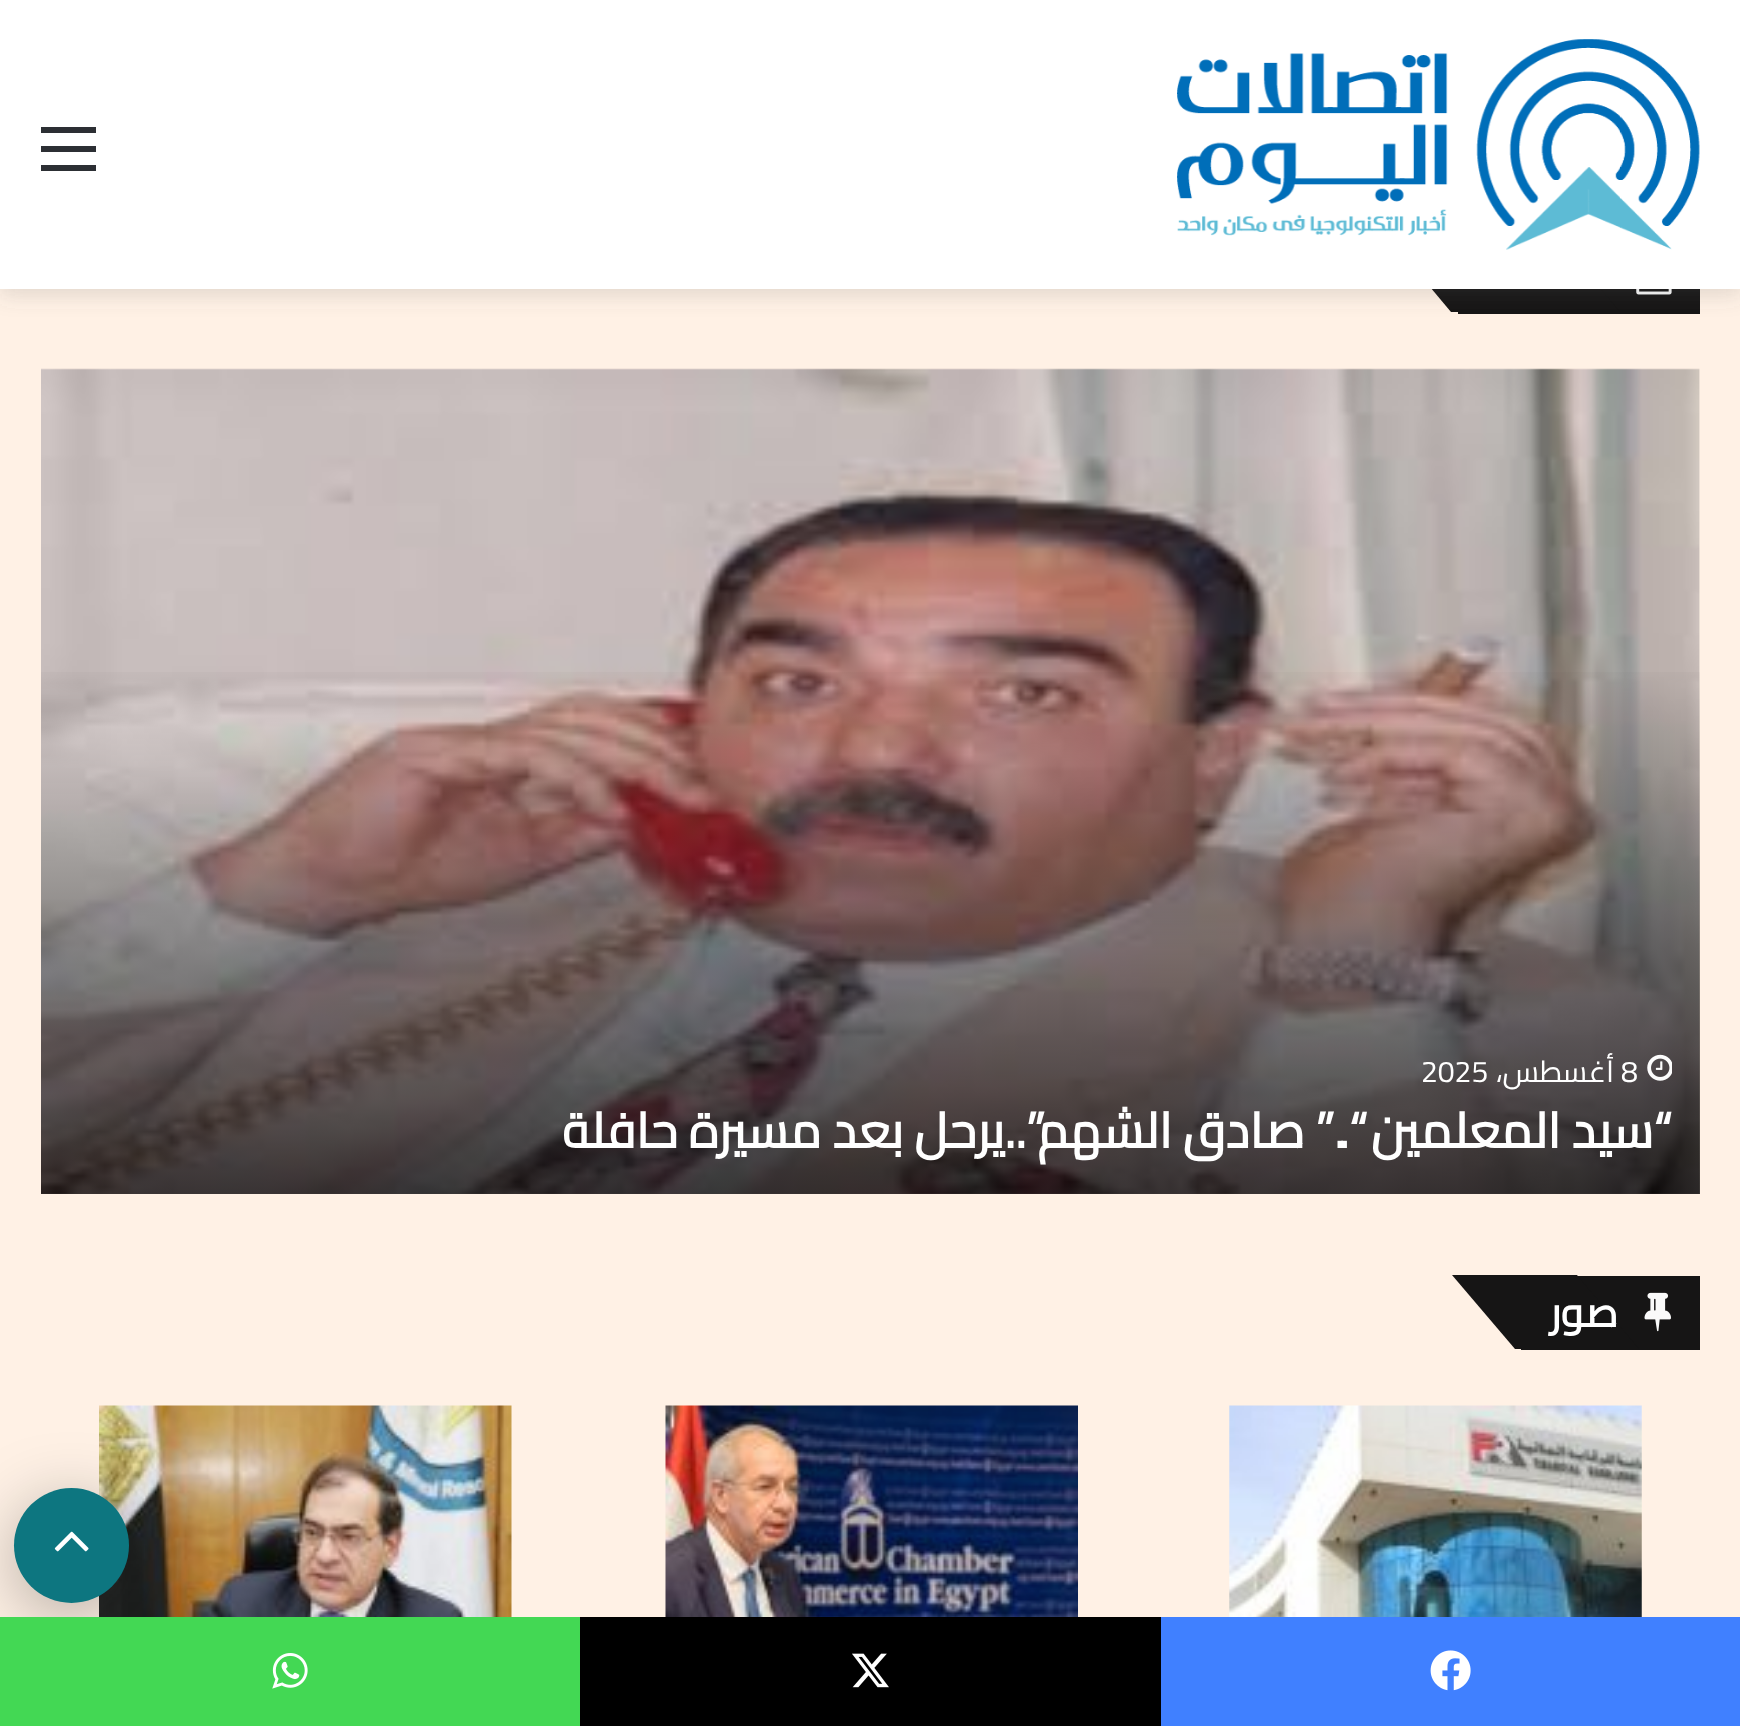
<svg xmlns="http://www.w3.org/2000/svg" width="1740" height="1726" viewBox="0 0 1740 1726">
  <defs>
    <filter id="blur1" x="-50%" y="-200%" width="200%" height="500%"><feGaussianBlur stdDeviation="11"/></filter>
    <linearGradient id="g1" gradientUnits="userSpaceOnUse" x1="870" y1="657" x2="870" y2="1194"><stop offset="0" stop-color="#030202" stop-opacity="0"/><stop offset="1" stop-color="#030202" stop-opacity="0.75"/></linearGradient>
    <filter id="blur2" x="-50%" y="-200%" width="200%" height="500%"><feGaussianBlur stdDeviation="34.5"/></filter>
  </defs>
  <rect width="100%" height="100%" fill="#fff1e5"/>
  <rect x="1458" y="289" width="242" height="25" fill="#161515"/>
  <path d="M1389 238H1558L1620 312H1451Z" fill="#161515"/>
  <image x="1636" y="289" width="36" height="6" href="img2.png"/>
  <rect x="0" y="6" width="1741" height="288" fill="#636363" fill-opacity="0.2" filter="url(#blur1)"/>
  <rect x="0" y="0" width="1740" height="289" fill="#ffffff"/>
  <image x="1177" y="39" width="523" height="211" href="img1.png"/>
  <rect x="41" y="146" width="55" height="6" fill="#2c2f34"/>
  <rect x="41" y="127" width="55" height="6" fill="#2c2f34"/>
  <rect x="41" y="165" width="55" height="6" fill="#2c2f34"/>
  <image x="41" y="368" width="1659" height="826" href="img3.png"/>
  <rect x="41" y="672" width="1659" height="522" fill="url(#g1)"/>
  <image x="1647" y="1054" width="25" height="27" href="img4.png"/>
  <text x="1621" y="1082" font-family="Cairo" font-size="30" fill="#ffffff">8</text>
  <text x="1614" y="1082" font-family="Cairo" font-size="30" direction="rtl" fill="#ffffff">أغسطس،</text>
  <text x="1421" y="1082" font-family="Cairo" font-size="30" fill="#ffffff">2025</text>
  <text x="1672" y="1148" font-family="Cairo" font-size="49.5" font-weight="bold" direction="rtl" fill="#ffffff">“سيد المعلمين “..” صادق الشهم”..يرحل بعد مسيرة حافلة</text>
  <rect x="1521" y="1276" width="179" height="74" fill="#161515"/>
  <path d="M1452 1275H1577L1639 1349H1515Z" fill="#161515"/>
  <image x="1644" y="1292" width="27" height="40" href="img5.png"/>
  <text x="1618" y="1327" font-family="Cairo" font-size="41" font-weight="bold" direction="rtl" fill="#ffffff">صور</text>
  <image x="1229" y="1405" width="413" height="212" href="img6.png"/>
  <image x="665" y="1405" width="413" height="212" href="img7.png"/>
  <image x="99" y="1405" width="413" height="212" href="img8.png"/>
  <rect x="14" y="1502" width="115" height="115" rx="57.5" fill="#000000" fill-opacity="0.3" filter="url(#blur2)"/>
  <circle cx="71.5" cy="1545.5" r="57.5" fill="#0d7680"/>
  <image x="54" y="1531" width="35" height="21" href="img9.png"/>
  <rect x="1161" y="1617" width="579" height="109" fill="#4080ff"/>
  <image x="1430" y="1650" width="41" height="41" href="img10.png"/>
  <rect x="580" y="1617" width="581" height="109" fill="#000000"/>
  <image x="852" y="1653" width="37" height="35" href="img11.png"/>
  <rect x="0" y="1617" width="580" height="109" fill="#43d854"/>
  <image x="272" y="1653" width="36" height="36" href="img12.png"/>
</svg>
